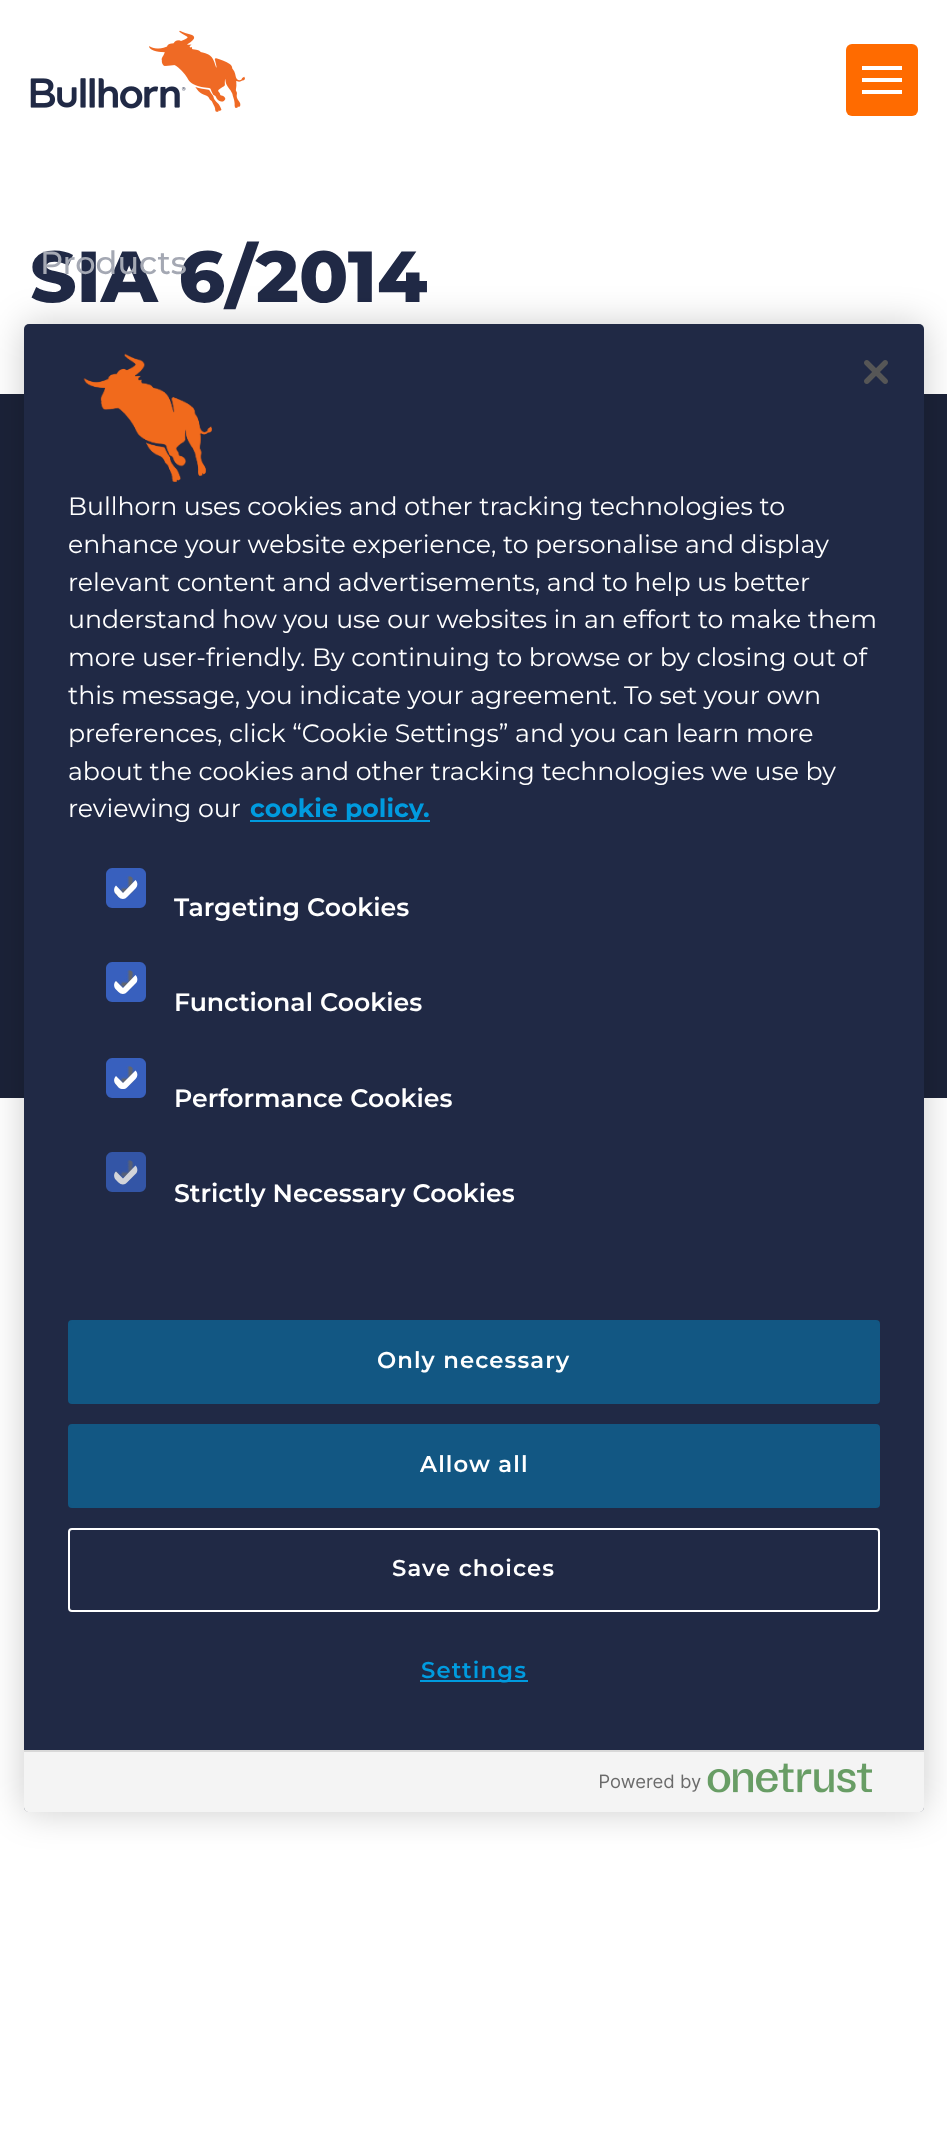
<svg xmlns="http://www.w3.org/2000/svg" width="947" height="2153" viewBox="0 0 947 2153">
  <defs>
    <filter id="blur1" x="-50%" y="-200%" width="200%" height="500%"><feGaussianBlur stdDeviation="18"/></filter>
  </defs>
  <rect width="100%" height="100%" fill="#ffffff"/>
  <image x="30" y="30" width="215" height="82" href="img1.png"/>
  <rect x="846" y="44" width="72" height="72" rx="6" fill="#ff6b00"/>
  <rect x="862" y="78" width="40" height="4" fill="#ffffff"/>
  <rect x="862" y="66" width="40" height="4" fill="#ffffff"/>
  <rect x="862" y="90" width="40" height="4" fill="#ffffff"/>
  <text x="30" y="302" font-family="Montserrat" font-size="72" font-weight="800" fill="#202945">SIA 6/2014</text>
  <text x="40" y="274" font-family="Montserrat" font-size="32" font-weight="500" fill="#a4a8b3">Products</text>
  <rect x="0" y="394" width="947" height="704" fill="#1b2238"/>
  <rect x="24" y="324" width="900" height="1488" rx="5" fill="#000000" fill-opacity="0.2" filter="url(#blur1)"/>
  <rect x="24" y="324" width="900" height="1488" rx="5" fill="#202945"/>
  <image x="864" y="360" width="24" height="24" href="img2.png"/>
  <image x="83" y="353" width="129" height="129" href="img3.png"/>
  <text x="68" y="515" font-family="Montserrat" font-size="25.2" fill="#ffffff">Bullhorn uses cookies and other tracking technologies to</text>
  <text x="68" y="553" font-family="Montserrat" font-size="25.2" fill="#ffffff">enhance your website experience, to personalise and display</text>
  <text x="68" y="591" font-family="Montserrat" font-size="25.2" fill="#ffffff">relevant content and advertisements, and to help us better</text>
  <text x="68" y="628" font-family="Montserrat" font-size="25.2" fill="#ffffff">understand how you use our websites in an effort to make them</text>
  <text x="68" y="666" font-family="Montserrat" font-size="25.2" fill="#ffffff">more user-friendly. By continuing to browse or by closing out of</text>
  <text x="68" y="704" font-family="Montserrat" font-size="25.2" fill="#ffffff">this message, you indicate your agreement. To set your own</text>
  <text x="68" y="742" font-family="Montserrat" font-size="25.2" fill="#ffffff">preferences, click “Cookie Settings” and you can learn more</text>
  <text x="68" y="780" font-family="Montserrat" font-size="25.2" fill="#ffffff">about the cookies and other tracking technologies we use by</text>
  <text x="68" y="817" font-family="Montserrat" font-size="25.2" fill="#ffffff">reviewing our</text>
  <rect x="250" y="820" width="180" height="2" fill="#009bdf"/>
  <text x="250" y="817" font-family="Montserrat" font-size="25.2" font-weight="bold" fill="#009bdf">cookie policy.</text>
  <path d="M112 868H140C143 868 146 871 146 874V902C146 905 143 908 140 908H112C109 908 106 905 106 902V874C106 871 109 868 112 868Z" fill="#3860be"/>
  <image x="114" y="876" width="21" height="22" href="img4.png"/>
  <path d="M116 885.5L124.5 877C126.5 875 130.5 875 133 877L135.5 880C138 882.5 138 886 135.5 888.5L127 897C125 899.5 121 899.5 118.5 897L116 894C113.5 892 113.5 888 116 885.5ZM116 885.5L124.5 877C126.5 875 130.5 875 133 877L135.5 880L123 893Z" fill="#ffffff" fill-rule="evenodd"/>
  <text x="174" y="916" font-family="Montserrat" font-size="25.2" font-weight="600" fill="#ffffff">Targeting Cookies</text>
  <path d="M112 962H140C143 962 146 965 146 968V996C146 999 143 1002 140 1002H112C109 1002 106 999 106 996V968C106 965 109 962 112 962Z" fill="#3860be"/>
  <image x="114" y="970" width="21" height="22" href="img4.png"/>
  <path d="M116 981L124.5 972.5C126.5 970 130.5 970 133 972.5L135.5 975C138 977.5 138 981.5 135.5 983.5L127 992C125 994.5 121 994.5 118.5 992L116 989.5C113.5 987 113.5 983 116 981ZM116 981L124.5 972.5C126.5 970 130.5 970 133 972.5L135.5 975L123 988Z" fill="#ffffff" fill-rule="evenodd"/>
  <text x="174" y="1011" font-family="Montserrat" font-size="25.2" font-weight="600" fill="#ffffff">Functional Cookies</text>
  <path d="M112 1058H140C143 1058 146 1061 146 1064V1092C146 1095 143 1098 140 1098H112C109 1098 106 1095 106 1092V1064C106 1061 109 1058 112 1058Z" fill="#3860be"/>
  <image x="114" y="1066" width="21" height="22" href="img4.png"/>
  <path d="M116 1076L124.5 1067.5C126.5 1065.5 130.5 1065.5 133 1067.5L135.5 1070.5C138 1073 138 1076.5 135.5 1079L127 1087.5C125 1089.5 121 1089.5 118.5 1087.5L116 1084.5C113.5 1082 113.5 1078.5 116 1076ZM116 1076L124.5 1067.5C126.5 1065.5 130.5 1065.5 133 1067.5L135.5 1070.5L123 1083Z" fill="#ffffff" fill-rule="evenodd"/>
  <text x="174" y="1107" font-family="Montserrat" font-size="25.2" font-weight="600" fill="#ffffff">Performance Cookies</text>
  <path d="M112 1152H140C143 1152 146 1155 146 1158V1186C146 1189 143 1192 140 1192H112C109 1192 106 1189 106 1186V1158C106 1155 109 1152 112 1152Z" fill="#3355a6"/>
  <image x="114" y="1160" width="20" height="19" href="img5.png"/>
  <path d="M116 1171.5L124.5 1163C126.5 1160.5 130.5 1160.5 133 1163L135.5 1165.5C138 1168 138 1172 135.5 1174L127 1182.5C125 1185 121 1185 118.5 1182.5L116 1180C113.5 1177.5 113.5 1173.5 116 1171.5ZM116 1171.5L124.5 1163C126.5 1160.5 130.5 1160.5 133 1163L135.5 1165.5L123 1178.5Z" fill="#d2d4da" fill-rule="evenodd"/>
  <text x="174" y="1202" font-family="Montserrat" font-size="25.2" font-weight="600" fill="#ffffff">Strictly Necessary Cookies</text>
  <rect x="69" y="1321" width="810" height="82" rx="3" fill="#125783" stroke="#125783" stroke-width="2"/>
  <text x="377" y="1368" font-family="Montserrat" font-size="22.75" font-weight="600" letter-spacing="1.1" fill="#ffffff">Only necessary</text>
  <rect x="69" y="1425" width="810" height="82" rx="3" fill="#125783" stroke="#125783" stroke-width="2"/>
  <text x="420" y="1472" font-family="Montserrat" font-size="22.75" font-weight="600" letter-spacing="1.1" fill="#ffffff">Allow all</text>
  <rect x="69" y="1529" width="810" height="82" rx="3" fill="none" stroke="#ffffff" stroke-width="2"/>
  <text x="392" y="1576" font-family="Montserrat" font-size="22.75" font-weight="600" letter-spacing="1.1" fill="#ffffff">Save choices</text>
  <rect x="420" y="1680" width="108" height="2" fill="#009bdf"/>
  <text x="421" y="1678" font-family="Montserrat" font-size="22.75" font-weight="600" letter-spacing="1.1" fill="#009bdf">Settings</text>
  <path d="M24 1750H924V1807C924 1810 922 1812 919 1812H29C26 1812 24 1810 24 1807Z" fill="#f4f4f4"/>
  <rect x="24" y="1750" width="900" height="2" fill="#d8d8d8"/>
  <image x="600" y="1763" width="272" height="30" href="img6.png"/>
</svg>
